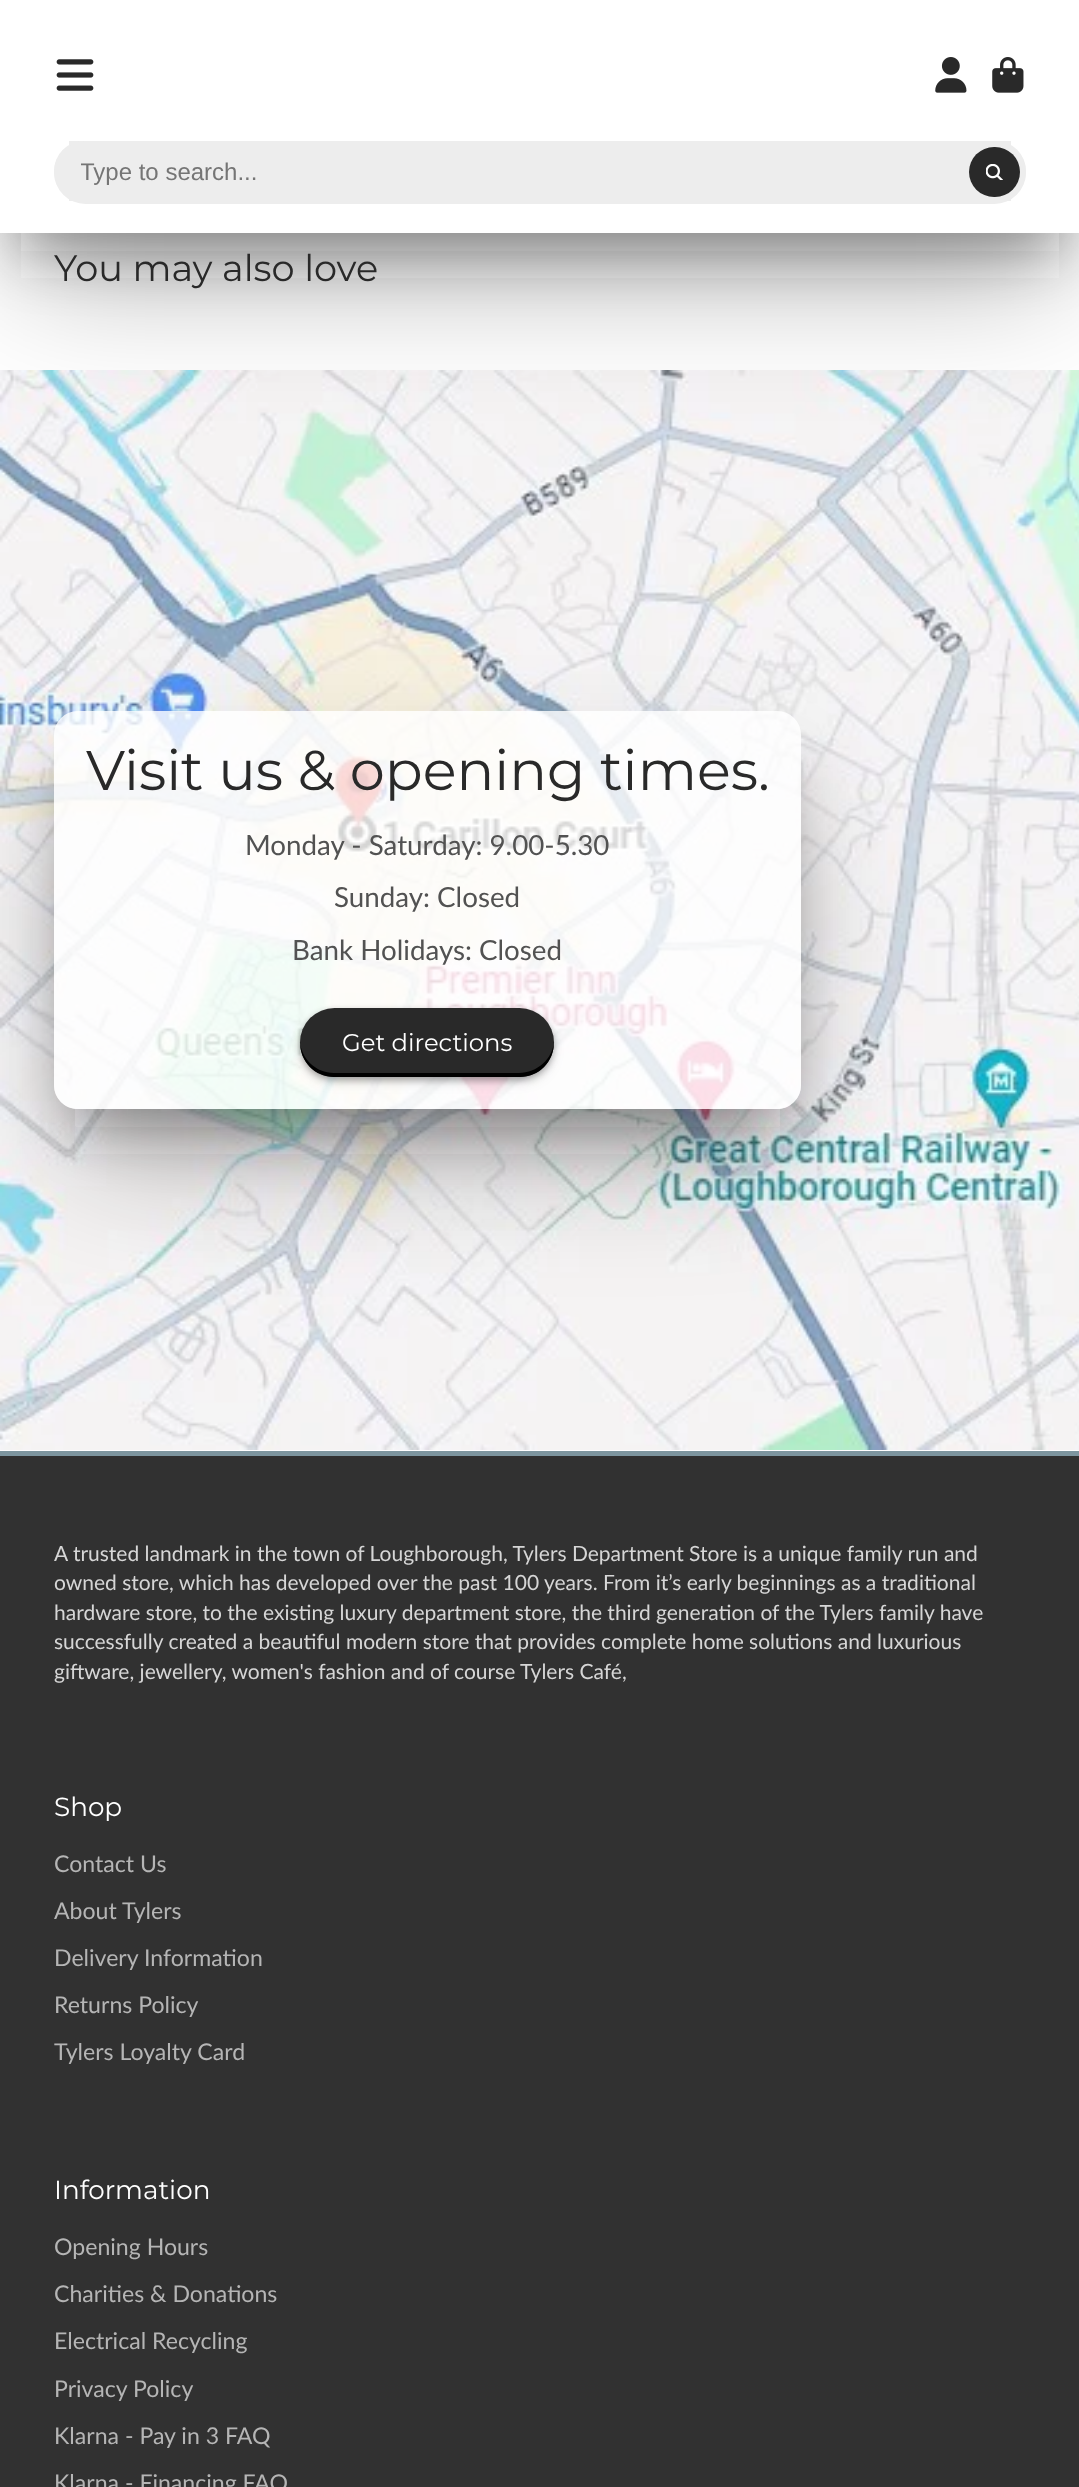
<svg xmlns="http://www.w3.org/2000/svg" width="1079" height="2487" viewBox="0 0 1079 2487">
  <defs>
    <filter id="blur1" x="-50%" y="-200%" width="200%" height="500%"><feGaussianBlur stdDeviation="29"/></filter>
    <filter id="blur2" x="-50%" y="-200%" width="200%" height="500%"><feGaussianBlur stdDeviation="65.5"/></filter>
    <clipPath id="clip1"><rect x="81" y="159" width="920" height="27"/></clipPath>
    <clipPath id="clip2"><path d="M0 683H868V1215H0ZM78 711H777C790.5 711 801 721.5 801 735V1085C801 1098.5 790.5 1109 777 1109H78C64.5 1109 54 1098.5 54 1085V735C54 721.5 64.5 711 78 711Z" clip-rule="evenodd"/></clipPath>
    <clipPath id="clip3"><path d="M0 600H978V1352H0ZM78 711H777C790.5 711 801 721.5 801 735V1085C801 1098.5 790.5 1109 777 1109H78C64.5 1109 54 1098.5 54 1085V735C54 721.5 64.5 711 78 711Z" clip-rule="evenodd"/></clipPath>
    <filter id="blur3" x="-50%" y="-200%" width="200%" height="500%"><feGaussianBlur stdDeviation="7"/></filter>
    <filter id="blur4" x="-50%" y="-200%" width="200%" height="500%"><feGaussianBlur stdDeviation="3.5"/></filter>
  </defs>
  <rect width="100%" height="100%" fill="#ffffff"/>
  <rect x="21" y="60" width="1038" height="191" fill="#1c1c1c" fill-opacity="0.4" filter="url(#blur1)"/>
  <image x="0" y="370" width="1079" height="1080" href="img5.png"/>
  <rect x="21" y="87" width="1038" height="191" fill="#1c1c1c" fill-opacity="0.3" filter="url(#blur2)"/>
  <rect x="0" y="0" width="1079" height="233" fill="#ffffff"/>
  <image x="56" y="59" width="38" height="32" href="img1.png"/>
  <image x="935" y="57" width="32" height="36" href="img2.png"/>
  <image x="992" y="57" width="32" height="36" href="img3.png"/>
  <rect x="54" y="141" width="972" height="60" rx="30" fill="#ededed"/>
  <rect x="69" y="141" width="942" height="60" fill="#ededed"/>
  <rect x="54" y="141" width="972" height="63" rx="31.5" fill="#ededed"/>
  <g clip-path="url(#clip1)">
    <text x="80" y="180" font-family="Liberation Sans" font-size="24" fill="#757575">Type to search...</text>
  </g>
  <rect x="969" y="147" width="51" height="50" rx="25" fill="#292929"/>
  <image x="986" y="164" width="17" height="16" href="img4.png"/>
  <text x="54" y="281" font-family="Montserrat" font-size="36.75" fill="#292929">You may also love</text>
  <g clip-path="url(#clip2)">
    <rect x="75" y="771" width="705" height="356" rx="3" fill="#1c1c1c" fill-opacity="0.4" filter="url(#blur1)"/>
  </g>
  <g clip-path="url(#clip3)">
    <rect x="75" y="798" width="705" height="356" rx="3" fill="#1c1c1c" fill-opacity="0.3" filter="url(#blur2)"/>
  </g>
  <rect x="54" y="711" width="747" height="398" rx="24" fill="#ffffff" fill-opacity="0.8"/>
  <text x="86" y="790" font-family="Montserrat" font-size="55.9" fill="#292929">Visit us &amp; opening times.</text>
  <text x="245" y="855" font-family="Lato" font-size="27.75" fill="#525252">Monday - Saturday: 9.00-5.30</text>
  <text x="334" y="907" font-family="Lato" font-size="27.75" fill="#525252">Sunday: Closed</text>
  <text x="292" y="960" font-family="Lato" font-size="27.75" fill="#525252">Bank Holidays: Closed</text>
  <rect x="303" y="1019" width="248" height="61" rx="30.5" fill="#000000" fill-opacity="0.15" filter="url(#blur3)"/>
  <rect x="300" y="1011" width="254" height="69" rx="34.5" fill="#000000" fill-opacity="0.3" filter="url(#blur4)"/>
  <rect x="300" y="1008" width="254" height="69" rx="34.5" fill="#292929"/>
  <path d="M300 1041V1042C300 1062 315 1077 334 1077H520C539 1077 554 1062 554 1042V1041C553 1059 537 1073 519 1073H334C316 1073 301 1059 300 1041Z" fill="#000000"/>
  <text x="342" y="1051" font-family="Montserrat" font-size="24.25" fill="#ffffff">Get directions</text>
  <rect x="0" y="1456" width="1079" height="1031" fill="#313131"/>
  <rect x="0" y="1451" width="1079" height="5" fill="#7d959f"/>
  <text x="54" y="1561" font-family="Lato" font-size="21" fill="#d6d6d6">A trusted landmark in the town of Loughborough, Tylers Department Store is a unique family run and</text>
  <text x="54" y="1590" font-family="Lato" font-size="21" fill="#d6d6d6">owned store, which has developed over the past 100 years. From it’s early beginnings as a traditional</text>
  <text x="54" y="1620" font-family="Lato" font-size="21" fill="#d6d6d6">hardware store, to the existing luxury department store, the third generation of the Tylers family have</text>
  <text x="54" y="1649" font-family="Lato" font-size="21" fill="#d6d6d6">successfully created a beautiful modern store that provides complete home solutions and luxurious</text>
  <text x="54" y="1679" font-family="Lato" font-size="21" fill="#d6d6d6">giftware, jewellery, women's fashion and of course Tylers Café,</text>
  <text x="54" y="1816" font-family="Montserrat" font-size="26.25" fill="#ffffff">Shop</text>
  <text x="54" y="1872" font-family="Lato" font-size="23.1" fill="#b5b5b5">Contact Us</text>
  <text x="54" y="1919" font-family="Lato" font-size="23.1" fill="#b5b5b5">About Tylers</text>
  <text x="54" y="1966" font-family="Lato" font-size="23.1" fill="#b5b5b5">Delivery Information</text>
  <text x="54" y="2013" font-family="Lato" font-size="23.1" fill="#b5b5b5">Returns Policy</text>
  <text x="54" y="2060" font-family="Lato" font-size="23.1" fill="#b5b5b5">Tylers Loyalty Card</text>
  <text x="54" y="2199" font-family="Montserrat" font-size="26.25" fill="#ffffff">Information</text>
  <text x="54" y="2255" font-family="Lato" font-size="23.1" fill="#b5b5b5">Opening Hours</text>
  <text x="54" y="2302" font-family="Lato" font-size="23.1" fill="#b5b5b5">Charities &amp; Donations</text>
  <text x="54" y="2349" font-family="Lato" font-size="23.1" fill="#b5b5b5">Electrical Recycling</text>
  <text x="54" y="2397" font-family="Lato" font-size="23.1" fill="#b5b5b5">Privacy Policy</text>
  <text x="54" y="2444" font-family="Lato" font-size="23.1" fill="#b5b5b5">Klarna - Pay in 3 FAQ</text>
  <text x="54" y="2491" font-family="Lato" font-size="23.1" fill="#b5b5b5">Klarna - Financing FAQ</text>
</svg>
